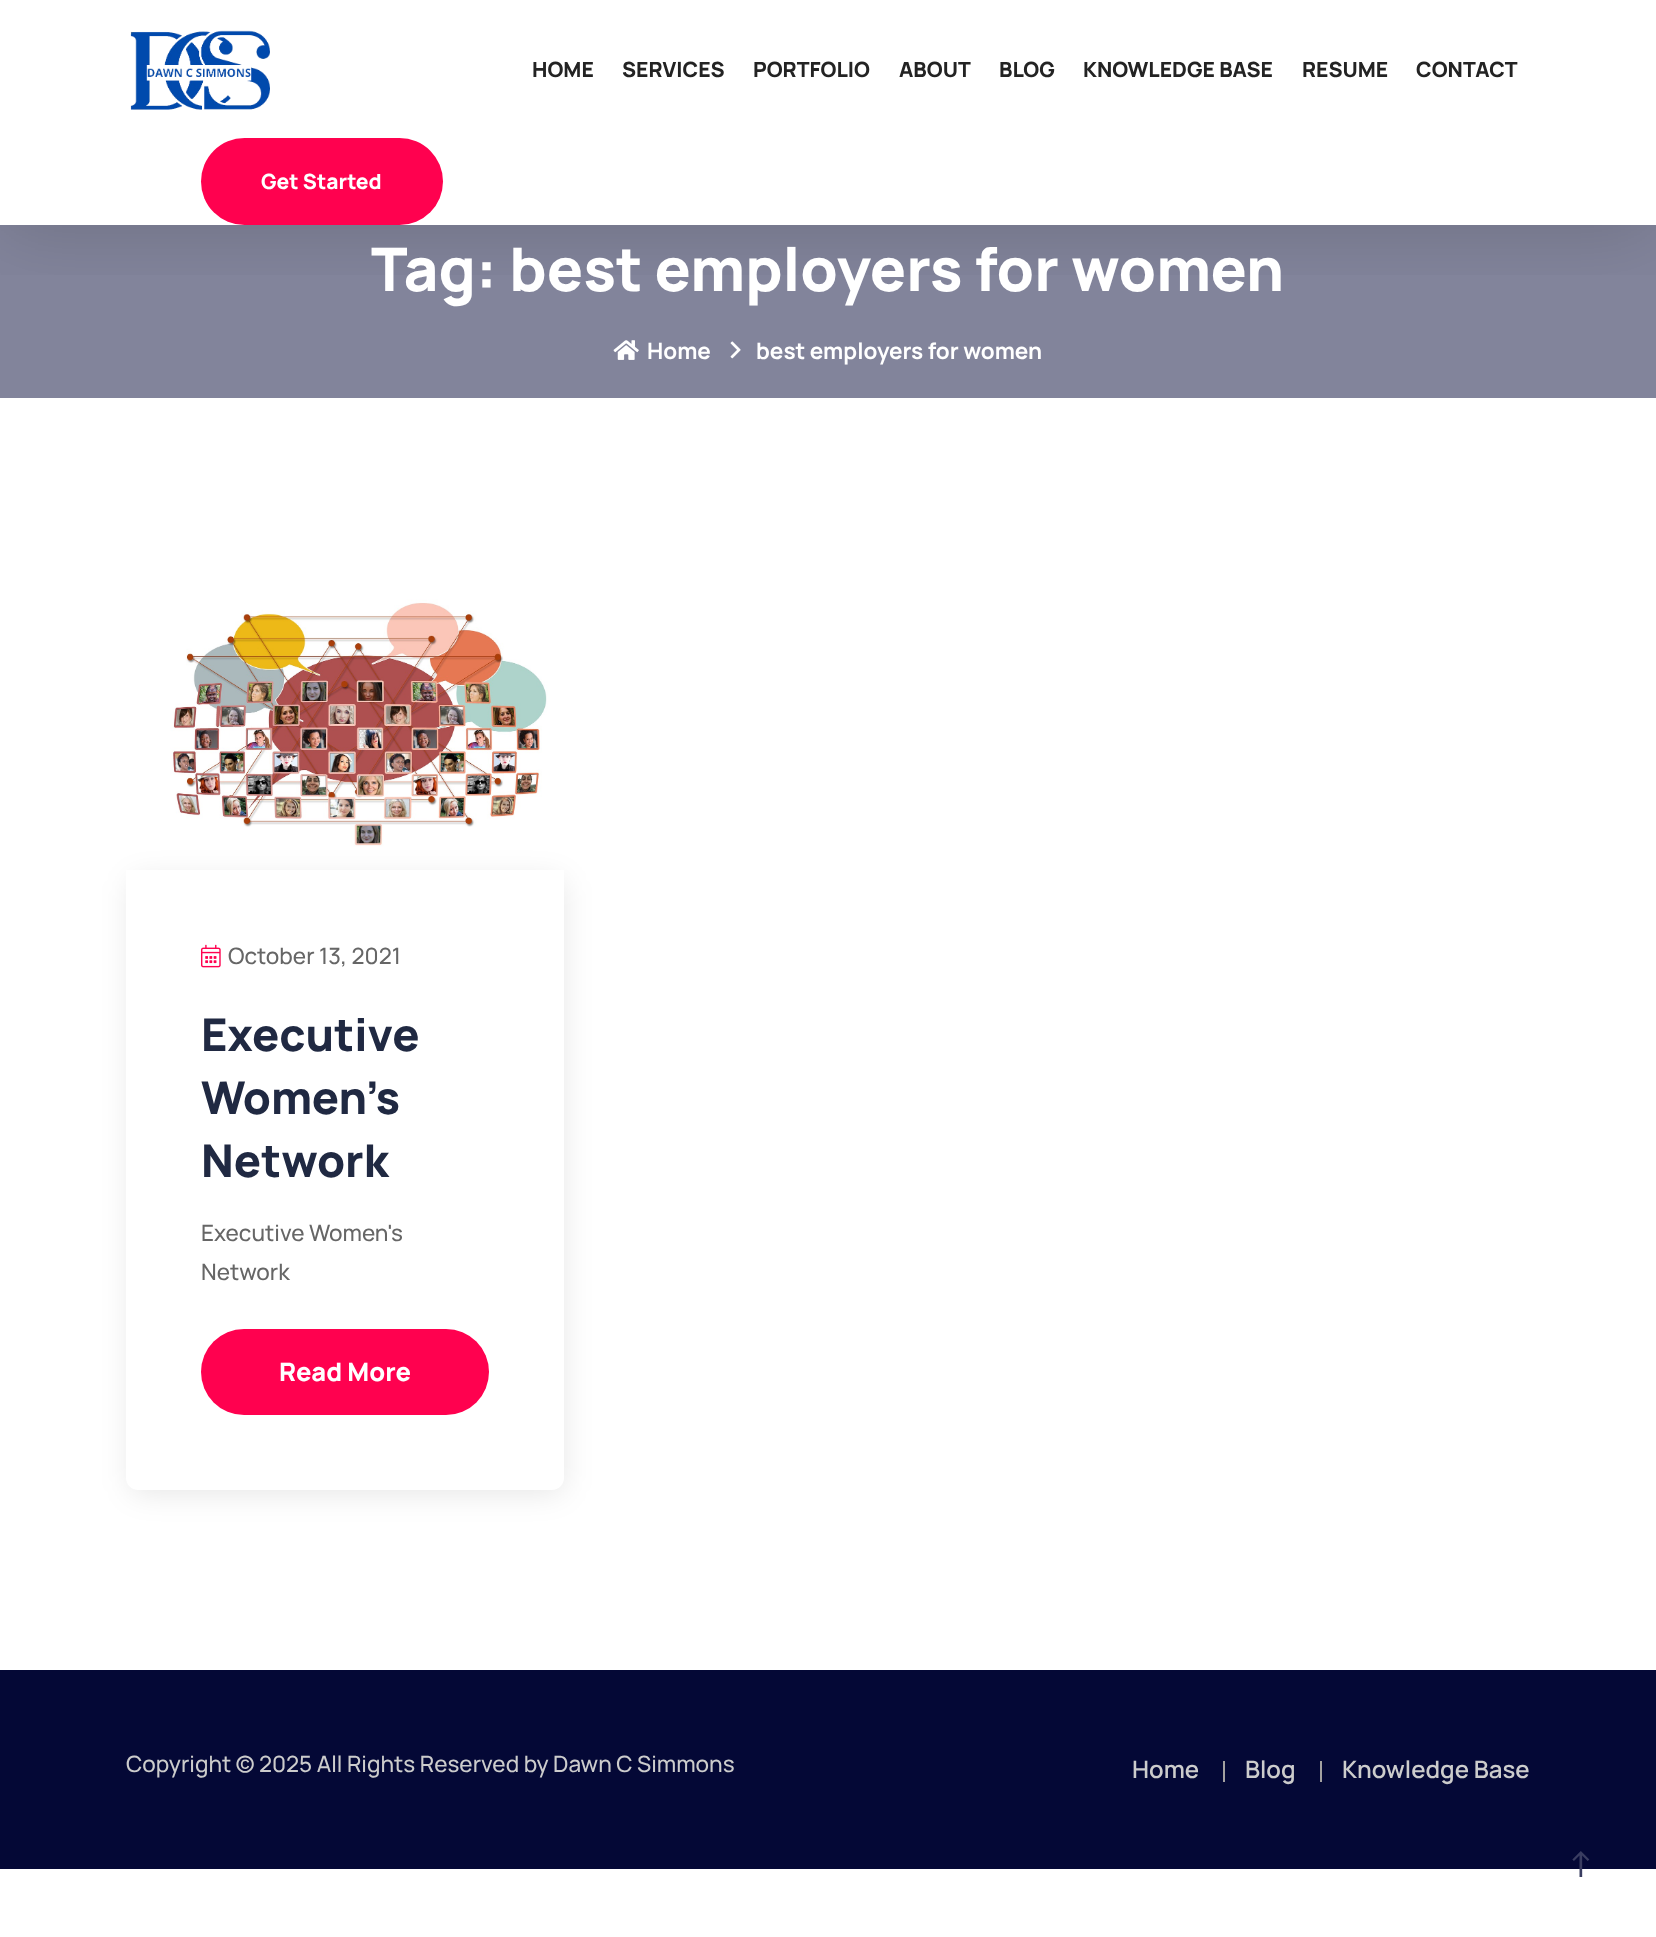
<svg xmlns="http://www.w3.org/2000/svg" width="1656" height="1937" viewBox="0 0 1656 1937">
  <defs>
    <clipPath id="clip1"><rect x="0" y="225" width="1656" height="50"/></clipPath>
    <filter id="blur1" x="-50%" y="-200%" width="200%" height="500%"><feGaussianBlur stdDeviation="37.5"/></filter>
    <clipPath id="clip2"><path d="M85 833H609V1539H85ZM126 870H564V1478C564 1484.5 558.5 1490 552 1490H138C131.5 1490 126 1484.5 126 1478Z" clip-rule="evenodd"/></clipPath>
    <filter id="blur2" x="-50%" y="-200%" width="200%" height="500%"><feGaussianBlur stdDeviation="15"/></filter>
  </defs>
  <rect width="100%" height="100%" fill="#ffffff"/>
  <rect x="0" y="225" width="1656" height="173" fill="#82849b"/>
  <image x="613" y="340" width="26" height="20" href="img2.png"/>
  <image x="730" y="341" width="11" height="18" href="img3.png"/>
  <g clip-path="url(#clip1)">
    <rect x="0" y="8" width="1656" height="225" fill="#000000" fill-opacity="0.15" filter="url(#blur1)"/>
  </g>
  <image x="130" y="30" width="140" height="80" href="img1.png"/>
  <text x="532" y="77" font-family="Manrope" font-size="21" font-weight="800" fill="#232323">HOME</text>
  <text x="622" y="77" font-family="Manrope" font-size="21" font-weight="800" fill="#232323">SERVICES</text>
  <text x="753" y="77" font-family="Manrope" font-size="21" font-weight="800" fill="#232323">PORTFOLIO</text>
  <text x="899" y="77" font-family="Manrope" font-size="21" font-weight="800" fill="#232323">ABOUT</text>
  <text x="999" y="77" font-family="Manrope" font-size="21" font-weight="800" fill="#232323">BLOG</text>
  <text x="1083" y="77" font-family="Manrope" font-size="21" font-weight="800" fill="#232323">KNOWLEDGE BASE</text>
  <text x="1302" y="77" font-family="Manrope" font-size="21" font-weight="800" fill="#232323">RESUME</text>
  <text x="1416" y="77" font-family="Manrope" font-size="21" font-weight="800" fill="#232323">CONTACT</text>
  <rect x="201" y="138" width="242" height="87" rx="43.5" fill="#ff014f"/>
  <text x="261" y="189" font-family="Manrope" font-size="21" font-weight="800" fill="#ffffff">Get Started</text>
  <text x="371" y="291" font-family="Manrope" font-size="60" font-weight="800" fill="#ffffff">Tag: best employers for women</text>
  <text x="647" y="359" font-family="Manrope" font-size="22.5" font-weight="bold" fill="#ffffff">Home</text>
  <text x="756" y="359" font-family="Manrope" font-size="22.5" font-weight="bold" fill="#ffffff">best employers for women</text>
  <image x="126" y="578" width="438" height="292" href="img4.png"/>
  <g clip-path="url(#clip2)">
    <rect x="131" y="879" width="432" height="614" rx="9" fill="#000000" fill-opacity="0.1" filter="url(#blur2)"/>
  </g>
  <image x="201" y="944" width="20" height="24" href="img5.png"/>
  <text x="228" y="964" font-family="Manrope" font-size="22.5" font-weight="500" fill="#666666">October 13, 2021</text>
  <text x="201" y="1051" font-family="Manrope" font-size="45" font-weight="800" fill="#202942">Executive</text>
  <text x="201" y="1114" font-family="Manrope" font-size="45" font-weight="800" fill="#202942">Women’s</text>
  <text x="201" y="1177" font-family="Manrope" font-size="45" font-weight="800" fill="#202942">Network</text>
  <text x="201" y="1241" font-family="Manrope" font-size="22.5" font-weight="500" fill="#666666">Executive Women's</text>
  <text x="201" y="1280" font-family="Manrope" font-size="22.5" font-weight="500" fill="#666666">Network</text>
  <rect x="201" y="1329" width="288" height="86" rx="43" fill="#ff014f"/>
  <text x="279" y="1381" font-family="Manrope" font-size="25.5" font-weight="800" fill="#ffffff">Read More</text>
  <rect x="0" y="1670" width="1656" height="199" fill="#040836"/>
  <text x="126" y="1772" font-family="Manrope" font-size="22.5" font-weight="500" fill="#cccccc">Copyright © 2025 All Rights Reserved by Dawn C Simmons</text>
  <text x="1132" y="1778" font-family="Manrope" font-size="24" font-weight="600" fill="#cccccc">Home</text>
  <rect x="1223" y="1761" width="2" height="21" fill="#a3a1a1"/>
  <text x="1245" y="1778" font-family="Manrope" font-size="24" font-weight="600" fill="#cccccc">Blog</text>
  <rect x="1320" y="1761" width="2" height="21" fill="#a3a1a1"/>
  <text x="1342" y="1778" font-family="Manrope" font-size="24" font-weight="600" fill="#cccccc">Knowledge Base</text>
  <text x="1568" y="1877" font-family="Manrope" font-size="36" font-weight="500" fill="#3a3d61">↑</text>
</svg>
